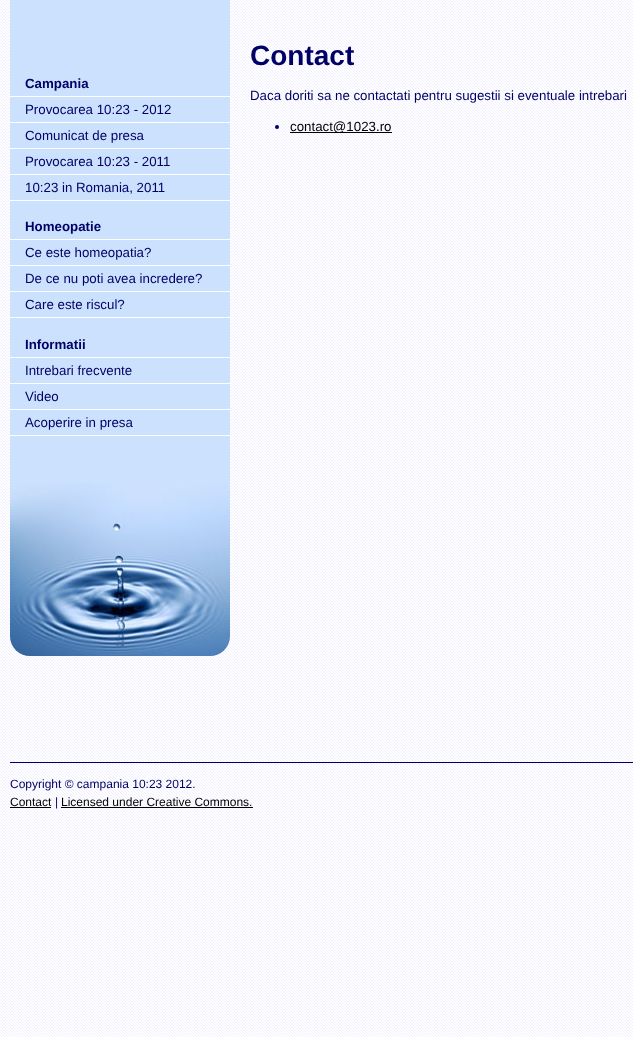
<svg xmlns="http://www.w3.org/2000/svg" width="633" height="1037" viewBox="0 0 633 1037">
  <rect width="100%" height="100%" fill="#ffffff"/>
  <image x="0" y="0" width="633" height="1037" href="img1.png"/>
  <path d="M10 0H230V636C230 647 221 656 210 656H30C19 656 10 647 10 636Z" fill="#cce1fe"/>
  <image x="10" y="483" width="220" height="173" href="img2.png"/>
  <rect x="10" y="96" width="220" height="1" fill="#ffffff"/>
  <text x="25" y="88" font-family="Liberation Sans" font-size="13.3" font-weight="bold" fill="#000066">Campania</text>
  <rect x="10" y="122" width="220" height="1" fill="#ffffff"/>
  <text x="25" y="114" font-family="Liberation Sans" font-size="13.3" fill="#000066">Provocarea 10:23 - 2012</text>
  <rect x="10" y="148" width="220" height="1" fill="#ffffff"/>
  <text x="25" y="140" font-family="Liberation Sans" font-size="13.3" fill="#000066">Comunicat de presa</text>
  <rect x="10" y="174" width="220" height="1" fill="#ffffff"/>
  <text x="25" y="166" font-family="Liberation Sans" font-size="13.3" fill="#000066">Provocarea 10:23 - 2011</text>
  <rect x="10" y="200" width="220" height="1" fill="#ffffff"/>
  <text x="25" y="192" font-family="Liberation Sans" font-size="13.3" fill="#000066">10:23 in Romania, 2011</text>
  <rect x="10" y="239" width="220" height="1" fill="#ffffff"/>
  <text x="25" y="231" font-family="Liberation Sans" font-size="13.3" font-weight="bold" fill="#000066">Homeopatie</text>
  <rect x="10" y="265" width="220" height="1" fill="#ffffff"/>
  <text x="25" y="257" font-family="Liberation Sans" font-size="13.3" fill="#000066">Ce este homeopatia?</text>
  <rect x="10" y="291" width="220" height="1" fill="#ffffff"/>
  <text x="25" y="283" font-family="Liberation Sans" font-size="13.3" fill="#000066">De ce nu poti avea incredere?</text>
  <rect x="10" y="317" width="220" height="1" fill="#ffffff"/>
  <text x="25" y="309" font-family="Liberation Sans" font-size="13.3" fill="#000066">Care este riscul?</text>
  <rect x="10" y="357" width="220" height="1" fill="#ffffff"/>
  <text x="25" y="349" font-family="Liberation Sans" font-size="13.3" font-weight="bold" fill="#000066">Informatii</text>
  <rect x="10" y="383" width="220" height="1" fill="#ffffff"/>
  <text x="25" y="375" font-family="Liberation Sans" font-size="13.3" fill="#000066">Intrebari frecvente</text>
  <rect x="10" y="409" width="220" height="1" fill="#ffffff"/>
  <text x="25" y="401" font-family="Liberation Sans" font-size="13.3" fill="#000066">Video</text>
  <rect x="10" y="435" width="220" height="1" fill="#ffffff"/>
  <text x="25" y="427" font-family="Liberation Sans" font-size="13.3" fill="#000066">Acoperire in presa</text>
  <text x="250" y="65" font-family="Liberation Sans" font-size="28" font-weight="bold" fill="#000066">Contact</text>
  <text x="250" y="100" font-family="Liberation Sans" font-size="13.3" fill="#000066">Daca doriti sa ne contactati pentru sugestii si eventuale intrebari</text>
  <circle cx="277" cy="127" r="2" fill="#000066"/>
  <rect x="290" y="132" width="102" height="1" fill="#000000"/>
  <text x="290" y="131" font-family="Liberation Sans" font-size="13.3" fill="#000000">contact@1023.ro</text>
  <rect x="10" y="762" width="623" height="1" fill="#000066"/>
  <text x="10" y="788" font-family="Liberation Sans" font-size="12" fill="#000066">Copyright © campania 10:23 2012.</text>
  <text x="10" y="806" font-family="Liberation Sans" font-size="12" fill="#000000">Contact</text>
  <rect x="10" y="807" width="41" height="1" fill="#000000"/>
  <text x="55" y="806" font-family="Liberation Sans" font-size="12" fill="#000066">|</text>
  <text x="61" y="806" font-family="Liberation Sans" font-size="12" fill="#000000">Licensed under Creative Commons.</text>
  <rect x="61" y="807" width="192" height="1" fill="#000000"/>
</svg>
